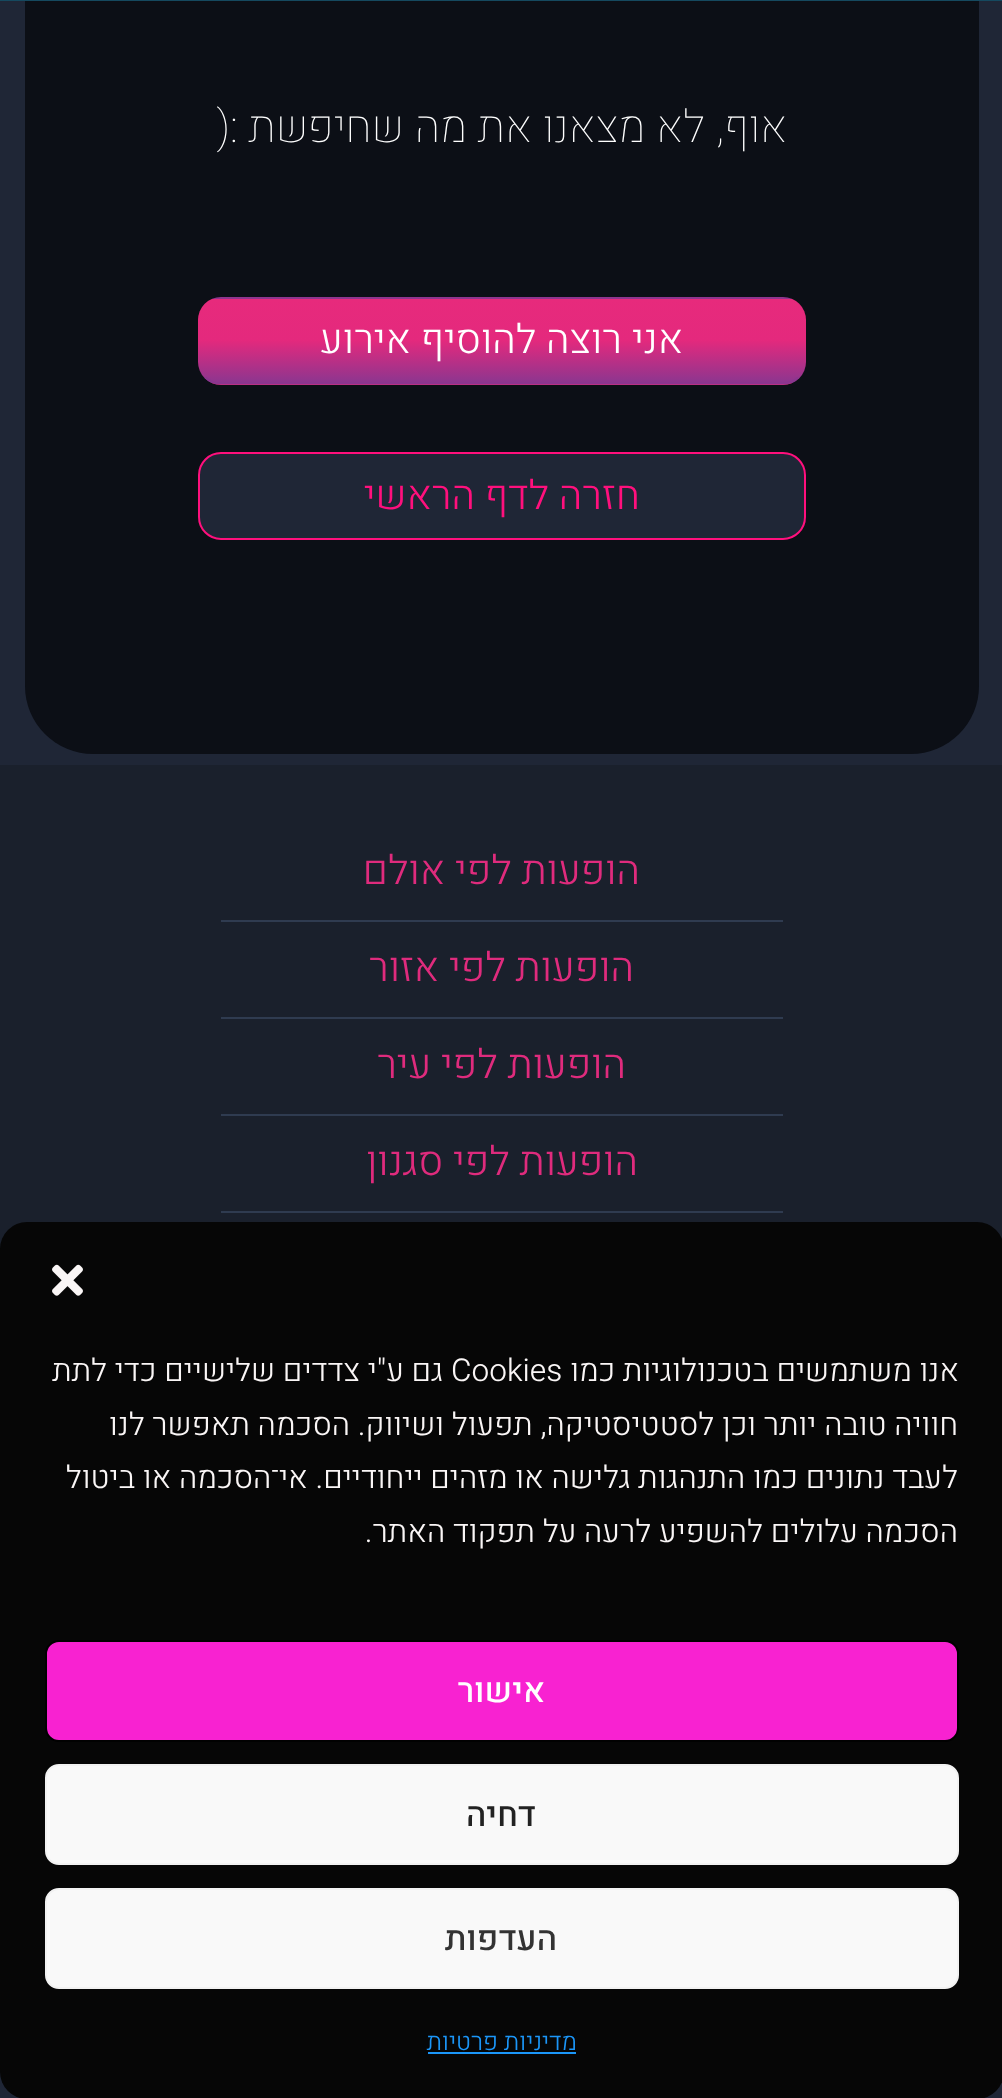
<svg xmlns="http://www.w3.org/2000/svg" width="1002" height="2098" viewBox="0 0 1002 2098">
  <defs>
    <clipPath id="clip1"><rect x="198" y="297" width="608" height="88" rx="23"/></clipPath>
    <linearGradient id="g1" gradientUnits="userSpaceOnUse" x1="502" y1="216" x2="502" y2="299"><stop offset="0" stop-color="#e72a7c"/><stop offset="0.49" stop-color="#e4297d"/><stop offset="1" stop-color="#8c368f"/></linearGradient>
    <linearGradient id="g2" gradientUnits="userSpaceOnUse" x1="502" y1="299" x2="502" y2="383"><stop offset="0" stop-color="#e72a7c"/><stop offset="0.49" stop-color="#e4297d"/><stop offset="1" stop-color="#8c368f"/></linearGradient>
    <linearGradient id="g3" gradientUnits="userSpaceOnUse" x1="502" y1="382" x2="502" y2="466"><stop offset="0" stop-color="#e72a7c"/><stop offset="0.49" stop-color="#e4297d"/><stop offset="1" stop-color="#8c368f"/></linearGradient>
  </defs>
  <rect width="100%" height="100%" fill="#1f2636"/>
  <rect x="25" y="-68" width="954" height="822" rx="68" fill="#0c0f16"/>
  <rect x="0" y="0" width="1002" height="1" fill="#15495f"/>
  <text x="787" y="142" font-family="Heebo" font-size="45" font-weight="100" direction="rtl" fill="#ffffff">אוף, לא מצאנו את מה שחיפשת :(</text>
  <g clip-path="url(#clip1)">
    <rect x="211" y="297" width="582" height="2" fill="url(#g1)"/>
    <rect x="198" y="299" width="608" height="84" fill="url(#g2)"/>
    <rect x="211" y="383" width="582" height="2" fill="url(#g3)"/>
  </g>
  <path d="M798 377.5C794 381.5 788.5 383.5 783 383.5H220.5C215 383.5 209.5 381.5 205.5 377.5" fill="none" stroke="#8c368f" stroke-width="2.2"/>
  <text x="683" y="353" font-family="Heebo" font-size="40.5" font-weight="300" direction="rtl" fill="#ffffff">אני רוצה להוסיף אירוע</text>
  <rect x="199" y="453" width="606" height="86" rx="22" fill="#1f2636" stroke="#ff107d" stroke-width="2"/>
  <text x="640" y="509" font-family="Heebo" font-size="40.5" font-weight="300" direction="rtl" fill="#ff107d">חזרה לדף הראשי</text>
  <rect x="0" y="765" width="1002" height="484" fill="#1a202c"/>
  <rect x="221" y="920" width="562" height="2" fill="#2f3b50"/>
  <text x="640" y="884" font-family="Heebo" font-size="40.5" font-weight="300" direction="rtl" fill="#df2b7d">הופעות לפי אולם</text>
  <rect x="221" y="1017" width="562" height="2" fill="#2f3b50"/>
  <text x="634" y="981" font-family="Heebo" font-size="40.5" font-weight="300" direction="rtl" fill="#df2b7d">הופעות לפי אזור</text>
  <rect x="221" y="1114" width="562" height="2" fill="#2f3b50"/>
  <text x="626" y="1078" font-family="Heebo" font-size="40.5" font-weight="300" direction="rtl" fill="#df2b7d">הופעות לפי עיר</text>
  <rect x="221" y="1211" width="562" height="2" fill="#2f3b50"/>
  <text x="638" y="1175" font-family="Heebo" font-size="40.5" font-weight="300" direction="rtl" fill="#df2b7d">הופעות לפי סגנון</text>
  <rect x="0" y="1222" width="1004" height="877" rx="27" fill="#060606"/>
  <image x="52" y="1264" width="31" height="32" href="img1.png"/>
  <text x="959" y="1381" font-family="Heebo" font-size="31.5" font-weight="300" direction="rtl" fill="#faf6f6">אנו משתמשים בטכנולוגיות כמו</text>
  <text x="451" y="1381" font-family="Heebo" font-size="31.5" font-weight="300" fill="#faf6f6">Cookies</text>
  <text x="443" y="1381" font-family="Heebo" font-size="31.5" font-weight="300" direction="rtl" fill="#faf6f6">גם ע"י צדדים שלישיים כדי לתת</text>
  <text x="958" y="1435" font-family="Heebo" font-size="31.5" font-weight="300" direction="rtl" fill="#faf6f6">חוויה טובה יותר וכן לסטטיסטיקה, תפעול ושיווק. הסכמה תאפשר לנו</text>
  <text x="958" y="1488" font-family="Heebo" font-size="31.5" font-weight="300" direction="rtl" fill="#faf6f6">לעבד נתונים כמו התנהגות גלישה או מזהים ייחודיים. אי־הסכמה או ביטול</text>
  <text x="958" y="1542" font-family="Heebo" font-size="31.5" font-weight="300" direction="rtl" fill="#faf6f6">הסכמה עלולים להשפיע לרעה על תפקוד האתר.</text>
  <rect x="46" y="1641" width="912" height="100" rx="13" fill="#f822d1" stroke="#010101" stroke-width="2"/>
  <text x="545" y="1702" font-family="Heebo" font-size="34" font-weight="500" direction="rtl" fill="#ffffff">אישור</text>
  <rect x="46" y="1765" width="912" height="99" rx="13" fill="#f9f9f9" stroke="#f2f2f2" stroke-width="2"/>
  <text x="536" y="1826" font-family="Heebo" font-size="34" font-weight="500" direction="rtl" fill="#222222">דחיה</text>
  <rect x="46" y="1889" width="912" height="99" rx="13" fill="#f9f9f9" stroke="#f2f2f2" stroke-width="2"/>
  <text x="557" y="1950" font-family="Heebo" font-size="34" font-weight="500" direction="rtl" fill="#333333">העדפות</text>
  <text x="577" y="2050" font-family="Heebo" font-size="24.75" font-weight="300" direction="rtl" fill="#1b96f8">מדיניות פרטיות</text>
  <rect x="428" y="2052" width="148" height="2" fill="#1b96f8"/>
</svg>
